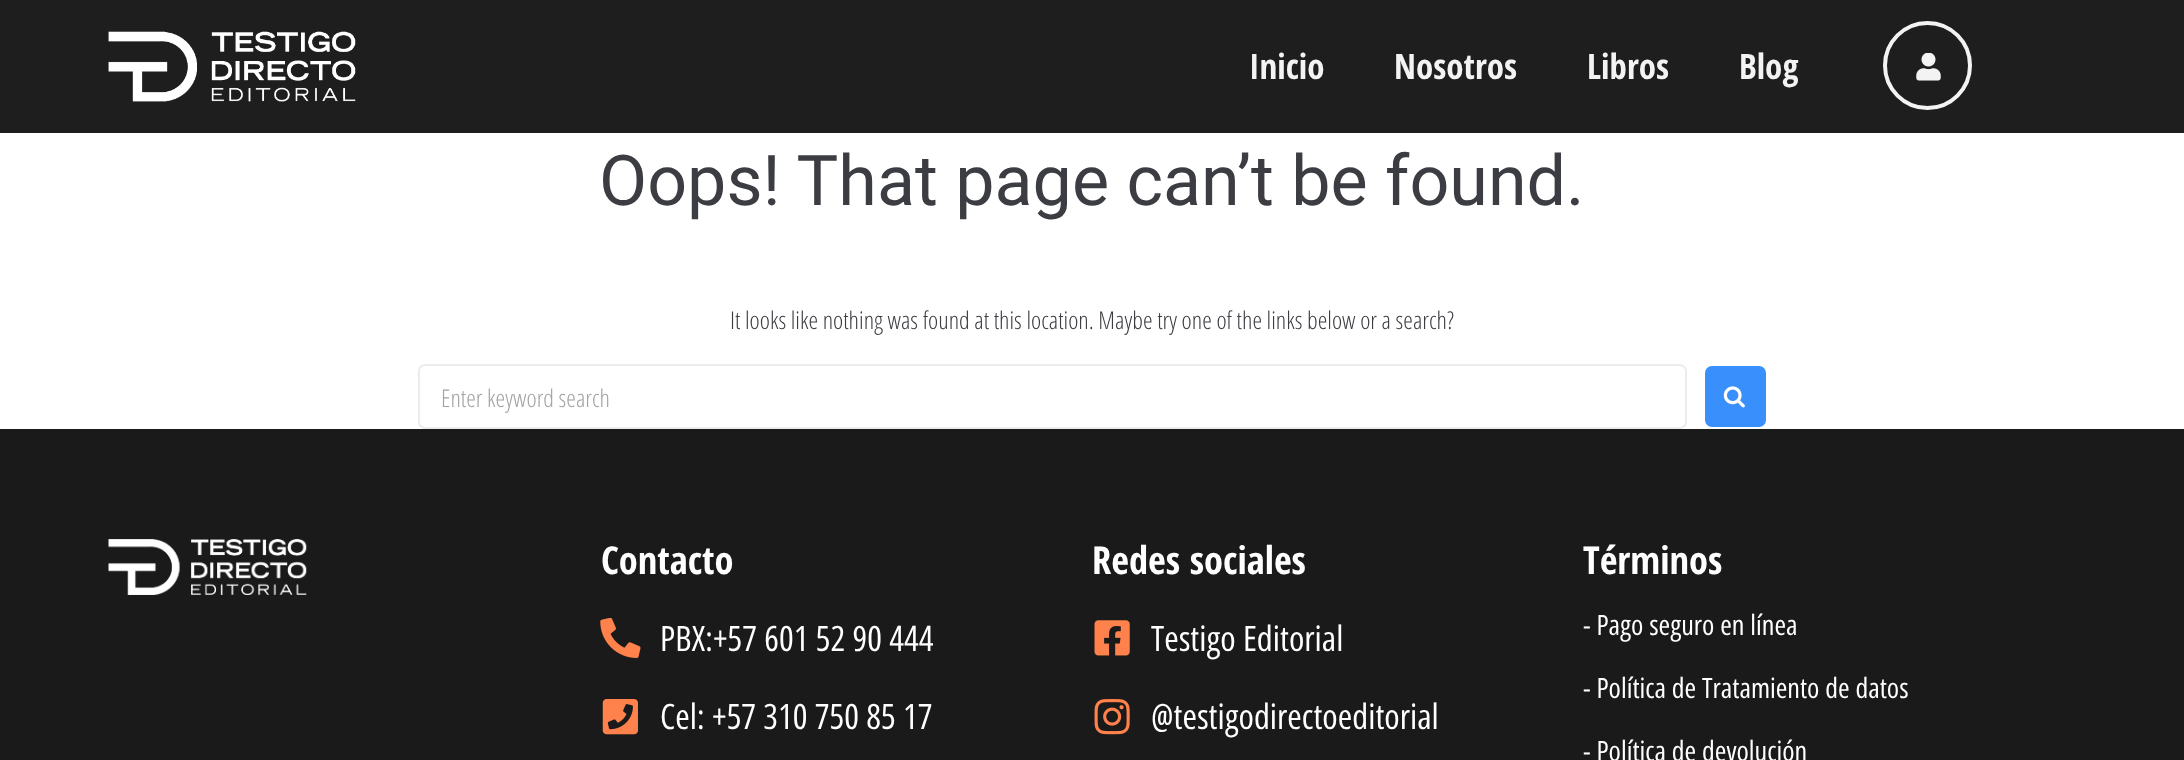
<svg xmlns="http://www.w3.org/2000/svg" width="2184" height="760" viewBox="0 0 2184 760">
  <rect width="100%" height="100%" fill="#ffffff"/>
  <rect x="0" y="0" width="2184" height="133" fill="#1e1e1e"/>
  <image x="108" y="31" width="248" height="71" href="img1.png"/>
  <text x="1249" y="79" font-family="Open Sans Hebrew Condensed" font-size="35" font-weight="bold" fill="#f3f3f3">Inicio</text>
  <text x="1394" y="79" font-family="Open Sans Hebrew Condensed" font-size="35" font-weight="bold" fill="#f3f3f3">Nosotros</text>
  <text x="1587" y="79" font-family="Open Sans Hebrew Condensed" font-size="35" font-weight="bold" fill="#f3f3f3">Libros</text>
  <text x="1739" y="79" font-family="Open Sans Hebrew Condensed" font-size="35" font-weight="bold" fill="#f3f3f3">Blog</text>
  <circle cx="1927.5" cy="65.5" r="42.5" fill="none" stroke="#f3f3f3" stroke-width="4"/>
  <image x="1916" y="53" width="25" height="28" href="img2.png"/>
  <text x="599" y="205" font-family="Roboto" font-size="70" fill="#3b3d42">Oops! That page can’t be found.</text>
  <text x="730" y="329" font-family="Open Sans Hebrew Condensed" font-size="24.5" font-weight="300" fill="#3b3d42">It looks like nothing was found at this location. Maybe try one of the links below or a search?</text>
  <rect x="419" y="365" width="1267" height="63" rx="6" fill="none" stroke="#ebeced" stroke-width="2"/>
  <text x="441" y="407" font-family="Open Sans Hebrew Condensed" font-size="24.5" font-weight="300" fill="#a1a2a4">Enter keyword search</text>
  <rect x="1705" y="366" width="61" height="61" rx="7" fill="#398ffc"/>
  <image x="1723" y="386" width="22" height="22" href="img3.png"/>
  <rect x="0" y="429" width="2184" height="331" fill="#1b1a1a"/>
  <image x="108" y="539" width="199" height="56" href="img4.png"/>
  <text x="601" y="574" font-family="Open Sans Hebrew Condensed" font-size="38.5" font-weight="bold" fill="#ffffff">Contacto</text>
  <image x="600" y="618" width="41" height="40" href="img5.png"/>
  <text x="660" y="651" font-family="Open Sans Hebrew Condensed" font-size="35" fill="#ffffff">PBX:+57 601 52 90 444</text>
  <image x="602" y="699" width="36" height="36" href="img6.png"/>
  <text x="660" y="729" font-family="Open Sans Hebrew Condensed" font-size="35" fill="#ffffff">Cel: +57 310 750 85 17</text>
  <text x="1092" y="574" font-family="Open Sans Hebrew Condensed" font-size="38.5" font-weight="bold" fill="#ffffff">Redes sociales</text>
  <image x="1094" y="620" width="36" height="36" href="img7.png"/>
  <text x="1151" y="651" font-family="Open Sans Hebrew Condensed" font-size="35" fill="#ffffff">Testigo Editorial</text>
  <image x="1094" y="699" width="36" height="36" href="img8.png"/>
  <text x="1151" y="729" font-family="Open Sans Hebrew Condensed" font-size="35" fill="#ffffff">@testigodirectoeditorial</text>
  <text x="1583" y="574" font-family="Open Sans Hebrew Condensed" font-size="38.5" font-weight="bold" fill="#ffffff">Términos</text>
  <text x="1583" y="635" font-family="Open Sans Hebrew Condensed" font-size="28" fill="#ffffff">- Pago seguro en línea</text>
  <text x="1583" y="698" font-family="Open Sans Hebrew Condensed" font-size="28" fill="#ffffff">- Política de Tratamiento de datos</text>
  <text x="1583" y="761" font-family="Open Sans Hebrew Condensed" font-size="28" fill="#ffffff">- Política de devolución</text>
</svg>
